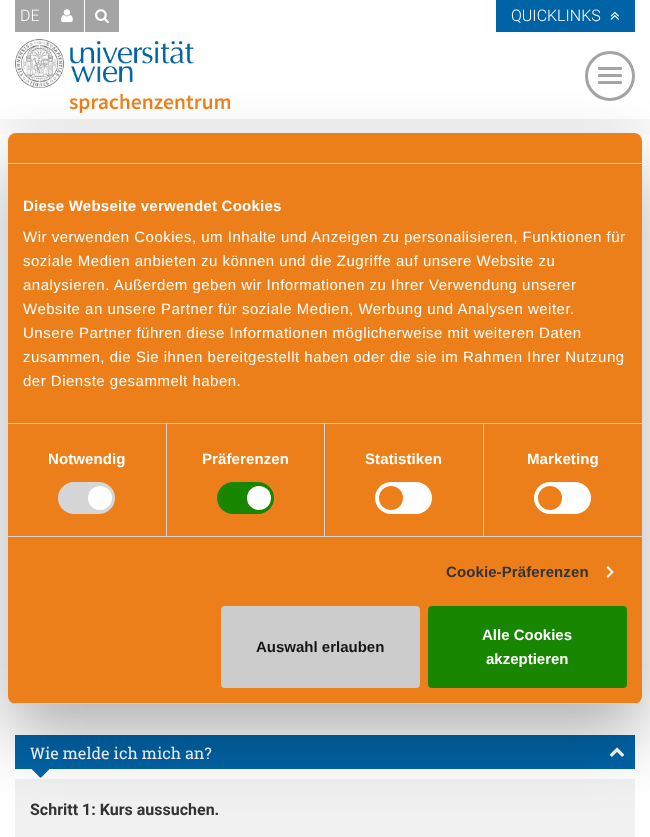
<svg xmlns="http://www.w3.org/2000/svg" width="650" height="837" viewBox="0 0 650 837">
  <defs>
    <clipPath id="clip1"><rect x="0" y="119" width="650" height="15"/></clipPath>
    <filter id="blur1" x="-50%" y="-200%" width="200%" height="500%"><feGaussianBlur stdDeviation="25"/></filter>
    <filter id="blur2" x="-50%" y="-200%" width="200%" height="500%"><feGaussianBlur stdDeviation="34"/></filter>
    <clipPath id="clip2"><rect x="8" y="133" width="634" height="571" rx="8"/></clipPath>
  </defs>
  <rect width="100%" height="100%" fill="#ffffff"/>
  <g clip-path="url(#clip1)">
    <rect x="0" y="0" width="650" height="119" fill="#000000" fill-opacity="0.1" filter="url(#blur1)"/>
  </g>
  <rect x="15" y="0" width="34" height="32" fill="#a4a4a4"/>
  <text x="20" y="21" font-family="Roboto" font-size="16" font-weight="300" fill="#ffffff">DE</text>
  <rect x="50" y="0" width="34" height="32" fill="#a4a4a4"/>
  <image x="61" y="9" width="12" height="14" href="img1.png"/>
  <rect x="85" y="0" width="34" height="32" fill="#a4a4a4"/>
  <image x="95" y="9" width="14" height="15" href="img2.png"/>
  <rect x="496" y="0" width="139" height="32" fill="#0063a6"/>
  <text x="511" y="21" font-family="Roboto" font-size="16" font-weight="300" fill="#ffffff">QUICKLINKS</text>
  <image x="610" y="11" width="9" height="9" href="img3.png"/>
  <image x="15" y="39" width="215" height="74" href="img4.png"/>
  <circle cx="610" cy="76" r="23.5" fill="none" stroke="#a4a4a4" stroke-width="3"/>
  <rect x="598" y="67" width="24" height="3" rx="1" fill="#a4a4a4"/>
  <rect x="598" y="74" width="24" height="3" rx="1" fill="#a4a4a4"/>
  <rect x="598" y="81" width="24" height="3" rx="1" fill="#a4a4a4"/>
  <rect x="15" y="735" width="620" height="34" fill="#0063a6"/>
  <text x="30" y="759" font-family="Roboto Slab" font-size="16" fill="#ffffff">Wie melde ich mich an?</text>
  <image x="32" y="769" width="18" height="9" href="img5.png"/>
  <image x="609" y="747" width="16" height="10" href="img6.png"/>
  <rect x="15" y="779" width="620" height="58" fill="#f1f1f1"/>
  <text x="30" y="815" font-family="Roboto" font-size="16" font-weight="bold" fill="#333333">Schritt 1: Kurs aussuchen.</text>
  <rect x="8" y="165" width="634" height="571" rx="8" fill="#000000" fill-opacity="0.3" filter="url(#blur2)"/>
  <rect x="8" y="133" width="634" height="571" rx="8" fill="#ed7f1a"/>
  <rect x="8" y="163" width="634" height="1" fill="#d6d6d6"/>
  <rect x="8" y="423" width="634" height="1" fill="#d6d6d6"/>
  <text x="23" y="211" font-family="Liberation Sans" font-size="15" font-weight="bold" letter-spacing="0.25" fill="#ffffff">Diese Webseite verwendet Cookies</text>
  <text x="23" y="242" font-family="Liberation Sans" font-size="15" letter-spacing="0.5" fill="#ffffff">Wir verwenden Cookies, um Inhalte und Anzeigen zu personalisieren, Funktionen für</text>
  <text x="23" y="266" font-family="Liberation Sans" font-size="15" letter-spacing="0.5" fill="#ffffff">soziale Medien anbieten zu können und die Zugriffe auf unsere Website zu</text>
  <text x="23" y="290" font-family="Liberation Sans" font-size="15" letter-spacing="0.5" fill="#ffffff">analysieren. Außerdem geben wir Informationen zu Ihrer Verwendung unserer</text>
  <text x="23" y="314" font-family="Liberation Sans" font-size="15" letter-spacing="0.5" fill="#ffffff">Website an unsere Partner für soziale Medien, Werbung und Analysen weiter.</text>
  <text x="23" y="338" font-family="Liberation Sans" font-size="15" letter-spacing="0.5" fill="#ffffff">Unsere Partner führen diese Informationen möglicherweise mit weiteren Daten</text>
  <text x="23" y="362" font-family="Liberation Sans" font-size="15" letter-spacing="0.5" fill="#ffffff">zusammen, die Sie ihnen bereitgestellt haben oder die sie im Rahmen Ihrer Nutzung</text>
  <text x="23" y="386" font-family="Liberation Sans" font-size="15" letter-spacing="0.5" fill="#ffffff">der Dienste gesammelt haben.</text>
  <rect x="8" y="536" width="634" height="1" fill="#d6d6d6"/>
  <rect x="166" y="424" width="1" height="112" fill="#d6d6d6"/>
  <text x="48" y="464" font-family="Liberation Sans" font-size="15" font-weight="bold" letter-spacing="0.1" fill="#ffffff">Notwendig</text>
  <rect x="58" y="482" width="57" height="32" rx="16" fill="#d6d6d6"/>
  <circle cx="100" cy="498" r="12" fill="#ffffff"/>
  <rect x="324" y="424" width="1" height="112" fill="#d6d6d6"/>
  <text x="202" y="464" font-family="Liberation Sans" font-size="15" font-weight="bold" letter-spacing="0.1" fill="#ffffff">Präferenzen</text>
  <rect x="217" y="482" width="57" height="32" rx="16" fill="#188600"/>
  <circle cx="259" cy="498" r="12" fill="#ffffff"/>
  <rect x="483" y="424" width="1" height="112" fill="#d6d6d6"/>
  <text x="365" y="464" font-family="Liberation Sans" font-size="15" font-weight="bold" letter-spacing="0.1" fill="#ffffff">Statistiken</text>
  <rect x="375" y="482" width="57" height="32" rx="16" fill="#ffffff"/>
  <circle cx="391" cy="498" r="12" fill="#ed7f1a"/>
  <text x="527" y="464" font-family="Liberation Sans" font-size="15" font-weight="bold" letter-spacing="0.1" fill="#ffffff">Marketing</text>
  <rect x="534" y="482" width="57" height="32" rx="16" fill="#ffffff"/>
  <circle cx="550" cy="498" r="12" fill="#ed7f1a"/>
  <text x="446" y="577" font-family="Liberation Sans" font-size="15" font-weight="bold" letter-spacing="0.1" fill="#333333">Cookie-Präferenzen</text>
  <path d="M608 566L613.5 572L612.5 573.5L606.5 567.5Z" fill="#ffffff"/>
  <path d="M612.5 570.5L613.5 572L608 578L606.5 576.5Z" fill="#ffffff"/>
  <g clip-path="url(#clip2)">
    <rect x="8" y="703" width="634" height="1" fill="#d6d6d6"/>
  </g>
  <rect x="222" y="607" width="197" height="80" rx="3" fill="#cccccc" stroke="#cccccc" stroke-width="2"/>
  <text x="256" y="652" font-family="Liberation Sans" font-size="15" font-weight="bold" fill="#141414">Auswahl erlauben</text>
  <rect x="429" y="607" width="197" height="80" rx="3" fill="#188600" stroke="#188600" stroke-width="2"/>
  <text x="482" y="640" font-family="Liberation Sans" font-size="15" font-weight="bold" fill="#ffffff">Alle Cookies</text>
  <text x="486" y="664" font-family="Liberation Sans" font-size="15" font-weight="bold" fill="#ffffff">akzeptieren</text>
</svg>
